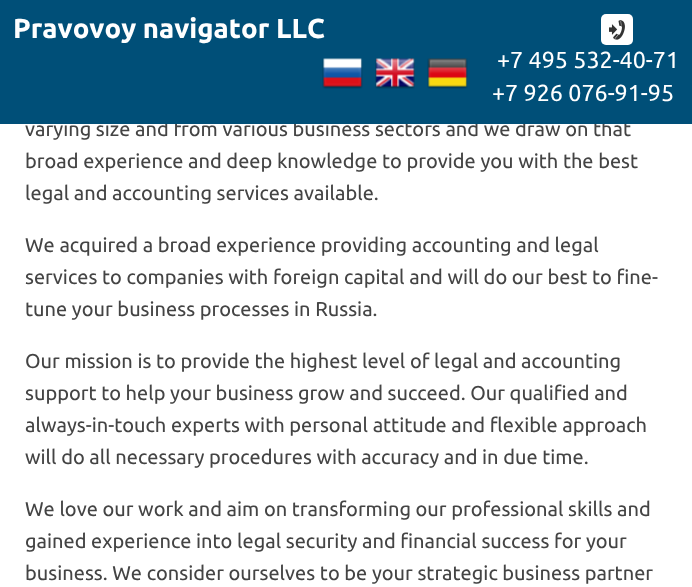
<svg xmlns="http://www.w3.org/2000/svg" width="692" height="587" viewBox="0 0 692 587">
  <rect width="100%" height="100%" fill="#ffffff"/>
  <text x="25" y="136" font-family="Ubuntu" font-size="20" fill="#444444">varying size and from various business sectors and we draw on that</text>
  <rect x="0" y="0" width="692" height="124" fill="#004f78"/>
  <text x="13" y="38" font-family="Ubuntu" font-size="27.5" font-weight="bold" fill="#ffffff">Pravovoy navigator LLC</text>
  <rect x="601" y="14" width="32" height="31" rx="5" fill="#ffffff"/>
  <image x="609" y="20" width="16" height="20" href="img1.png"/>
  <image x="322" y="58" width="41" height="31" href="img2.png"/>
  <image x="375" y="58" width="40" height="31" href="img3.png"/>
  <image x="427" y="58" width="41" height="31" href="img4.png"/>
  <text x="497" y="68" font-family="Ubuntu" font-size="23.25" fill="#ffffff">+7 495 532-40-71</text>
  <text x="492" y="101" font-family="Ubuntu" font-size="23.25" fill="#ffffff">+7 926 076-91-95</text>
  <text x="25" y="168" font-family="Ubuntu" font-size="20" fill="#444444">broad experience and deep knowledge to provide you with the best</text>
  <text x="25" y="200" font-family="Ubuntu" font-size="20" fill="#444444">legal and accounting services available.</text>
  <text x="25" y="252" font-family="Ubuntu" font-size="20" fill="#444444">We acquired a broad experience providing accounting and legal</text>
  <text x="25" y="284" font-family="Ubuntu" font-size="20" fill="#444444">services to companies with foreign capital and will do our best to fine-</text>
  <text x="25" y="316" font-family="Ubuntu" font-size="20" fill="#444444">tune your business processes in Russia.</text>
  <text x="25" y="368" font-family="Ubuntu" font-size="20" fill="#444444">Our mission is to provide the highest level of legal and accounting</text>
  <text x="25" y="400" font-family="Ubuntu" font-size="20" fill="#444444">support to help your business grow and succeed. Our qualified and</text>
  <text x="25" y="432" font-family="Ubuntu" font-size="20" fill="#444444">always-in-touch experts with personal attitude and flexible approach</text>
  <text x="25" y="464" font-family="Ubuntu" font-size="20" fill="#444444">will do all necessary procedures with accuracy and in due time.</text>
  <text x="25" y="516" font-family="Ubuntu" font-size="20" fill="#444444">We love our work and aim on transforming our professional skills and</text>
  <text x="25" y="548" font-family="Ubuntu" font-size="20" fill="#444444">gained experience into legal security and financial success for your</text>
  <text x="25" y="580" font-family="Ubuntu" font-size="20" fill="#444444">business. We consider ourselves to be your strategic business partner</text>
</svg>
